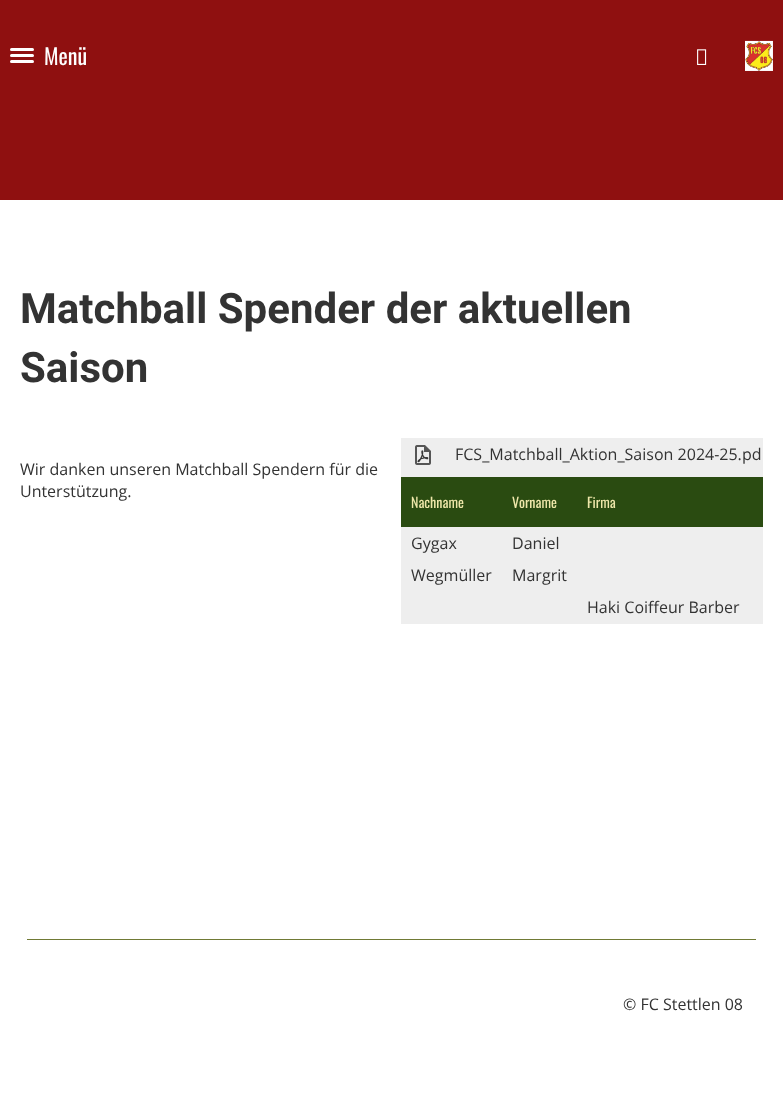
<svg xmlns="http://www.w3.org/2000/svg" width="783" height="1113" viewBox="0 0 783 1113">
  <rect width="100%" height="100%" fill="#ffffff"/>
  <rect x="0" y="0" width="783" height="200" fill="#8f1010"/>
  <rect x="10" y="48" width="24" height="3" rx="1.5" fill="#ffffff"/>
  <rect x="10" y="54" width="24" height="3" rx="1.5" fill="#ffffff"/>
  <rect x="10" y="60" width="24" height="3" rx="1.5" fill="#ffffff"/>
  <text x="44" y="65" font-family="Oswald" font-size="22" fill="#ffffff">Menü</text>
  <image x="697" y="49" width="10" height="16" href="img1.png"/>
  <image x="745" y="40" width="28" height="31" href="img2.png"/>
  <text x="20" y="323" font-family="Roboto" font-size="42" font-weight="bold" fill="#333333">Matchball Spender der aktuellen</text>
  <text x="20" y="382" font-family="Roboto" font-size="42" font-weight="bold" fill="#333333">Saison</text>
  <text x="20" y="475" font-family="Open Sans" font-size="16" fill="#333333">Wir danken unseren Matchball Spendern für die</text>
  <text x="20" y="497" font-family="Open Sans" font-size="16" fill="#333333">Unterstützung.</text>
  <rect x="401" y="438" width="362" height="39" fill="#eeeeee"/>
  <image x="415" y="445" width="16" height="20" href="img3.png"/>
  <text x="455" y="460" font-family="Open Sans" font-size="16" fill="#333333">FCS_Matchball_Aktion_Saison 2024-25.pd</text>
  <rect x="401" y="477" width="362" height="50" fill="#2a4b11"/>
  <text x="411" y="508" font-family="Oswald" font-size="14" fill="#eee7aa">Nachname</text>
  <text x="512" y="508" font-family="Oswald" font-size="14" fill="#eee7aa">Vorname</text>
  <text x="587" y="508" font-family="Oswald" font-size="14" fill="#eee7aa">Firma</text>
  <rect x="401" y="527" width="362" height="97" fill="#eeeeee"/>
  <text x="411" y="549" font-family="Open Sans" font-size="16" fill="#333333">Gygax</text>
  <text x="512" y="549" font-family="Open Sans" font-size="16" fill="#333333">Daniel</text>
  <text x="411" y="581" font-family="Open Sans" font-size="16" fill="#333333">Wegmüller</text>
  <text x="512" y="581" font-family="Open Sans" font-size="16" fill="#333333">Margrit</text>
  <text x="587" y="613" font-family="Open Sans" font-size="16" fill="#333333">Haki Coiffeur Barber</text>
  <rect x="27" y="939" width="729" height="1" fill="#707a35"/>
  <text x="623" y="1010" font-family="Open Sans" font-size="16" fill="#333333">© FC Stettlen 08</text>
</svg>
